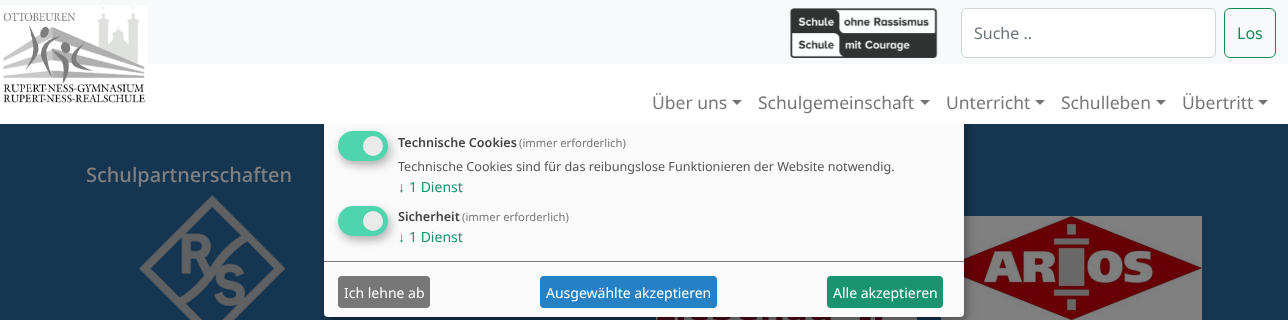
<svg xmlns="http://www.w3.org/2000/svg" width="1288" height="320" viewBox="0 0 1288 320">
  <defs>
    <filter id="blur1" x="-50%" y="-200%" width="200%" height="500%"><feGaussianBlur stdDeviation="5"/></filter>
    <filter id="blur2" x="-50%" y="-200%" width="200%" height="500%"><feGaussianBlur stdDeviation="3"/></filter>
  </defs>
  <rect width="100%" height="100%" fill="#163551"/>
  <image x="656" y="317" width="261" height="3" href="img4.png"/>
  <image x="941" y="216" width="261" height="104" href="img5.png"/>
  <rect x="329" y="8" width="640" height="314" rx="4" fill="#000000" fill-opacity="0.19" filter="url(#blur1)"/>
  <rect x="324" y="7" width="640" height="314" rx="4" fill="#000000" fill-opacity="0.2" filter="url(#blur2)"/>
  <rect x="324" y="3" width="640" height="314" rx="4" fill="#fafafa"/>
  <rect x="0" y="0" width="1288" height="64" fill="#f8f9fa"/>
  <image x="789" y="8" width="149" height="50" href="img1.png"/>
  <rect x="961.5" y="8.5" width="254" height="49" rx="5.5" fill="#ffffff" stroke="#ced4da"/>
  <text x="974" y="39" font-family="Noto Sans" font-size="16" fill="#6c757d">Suche ..</text>
  <rect x="1224.5" y="8.5" width="51" height="49" rx="5.5" fill="none" stroke="#198754"/>
  <text x="1237" y="39" font-family="Noto Sans" font-size="16" fill="#198754">Los</text>
  <rect x="343" y="136" width="50" height="30" rx="15" fill="#000000" fill-opacity="0.15" filter="url(#blur1)"/>
  <rect x="0" y="64" width="1288" height="60" fill="#ffffff"/>
  <image x="0" y="5" width="148" height="98" href="img2.png"/>
  <text x="652" y="109" font-family="Noto Sans" font-size="17.5" fill="#777777">Über uns</text>
  <path d="M732 100H742L737 105Z" fill="#737373"/>
  <text x="758" y="109" font-family="Noto Sans" font-size="17.5" fill="#777777">Schulgemeinschaft</text>
  <path d="M920 100H930L925 105Z" fill="#737373"/>
  <text x="946" y="109" font-family="Noto Sans" font-size="17.5" fill="#777777">Unterricht</text>
  <path d="M1035 100H1045L1040 105Z" fill="#737373"/>
  <text x="1061" y="109" font-family="Noto Sans" font-size="17.5" fill="#777777">Schulleben</text>
  <path d="M1156 100H1166L1161 105Z" fill="#737373"/>
  <text x="1182" y="109" font-family="Noto Sans" font-size="17.5" fill="#777777">Übertritt</text>
  <path d="M1258 100H1268L1263 105Z" fill="#737373"/>
  <text x="86" y="182" font-family="Noto Sans" font-size="20" font-weight="500" fill="#808080">Schulpartnerschaften</text>
  <image x="139" y="195" width="147" height="125" href="img3.png"/>
  <rect x="338" y="135" width="50" height="30" rx="15" fill="#323232" fill-opacity="0.2" filter="url(#blur2)"/>
  <rect x="338" y="131" width="50" height="30" rx="15" fill="#4fd5ad"/>
  <circle cx="373" cy="146" r="10" fill="#eaeaea"/>
  <text x="398" y="147" font-family="Noto Sans" font-size="12.6" font-weight="600" fill="#444444">Technische Cookies</text>
  <text x="519" y="147" font-family="Noto Sans" font-size="11.25" fill="#777777">(immer erforderlich)</text>
  <text x="398" y="171" font-family="Noto Sans" font-size="12.6" fill="#555555">Technische Cookies sind für das reibungslose Funktionieren der Website notwendig.</text>
  <text x="398" y="192" font-family="Liberation Sans" font-size="14" fill="#1a936f">↓</text>
  <text x="409" y="192" font-family="Noto Sans" font-size="14" fill="#1a936f">1 Dienst</text>
  <rect x="343" y="211" width="50" height="30" rx="15" fill="#000000" fill-opacity="0.15" filter="url(#blur1)"/>
  <rect x="338" y="210" width="50" height="30" rx="15" fill="#323232" fill-opacity="0.2" filter="url(#blur2)"/>
  <rect x="338" y="206" width="50" height="30" rx="15" fill="#4fd5ad"/>
  <circle cx="373" cy="221" r="10" fill="#eaeaea"/>
  <text x="398" y="221" font-family="Noto Sans" font-size="12.6" font-weight="600" fill="#444444">Sicherheit</text>
  <text x="462" y="221" font-family="Noto Sans" font-size="11.25" fill="#777777">(immer erforderlich)</text>
  <text x="398" y="242" font-family="Liberation Sans" font-size="14" fill="#1a936f">↓</text>
  <text x="409" y="242" font-family="Noto Sans" font-size="14" fill="#1a936f">1 Dienst</text>
  <rect x="324" y="261" width="640" height="1" fill="#777777"/>
  <rect x="338" y="276" width="92" height="32" rx="4" fill="#777777"/>
  <text x="344" y="298" font-family="Noto Sans" font-size="14" fill="#ffffff">Ich lehne ab</text>
  <rect x="540" y="276" width="177" height="32" rx="4" fill="#2581c4"/>
  <text x="546" y="298" font-family="Noto Sans" font-size="14" fill="#ffffff">Ausgewählte akzeptieren</text>
  <rect x="827" y="276" width="116" height="32" rx="4" fill="#1a936f"/>
  <text x="833" y="298" font-family="Noto Sans" font-size="14" fill="#ffffff">Alle akzeptieren</text>
</svg>
